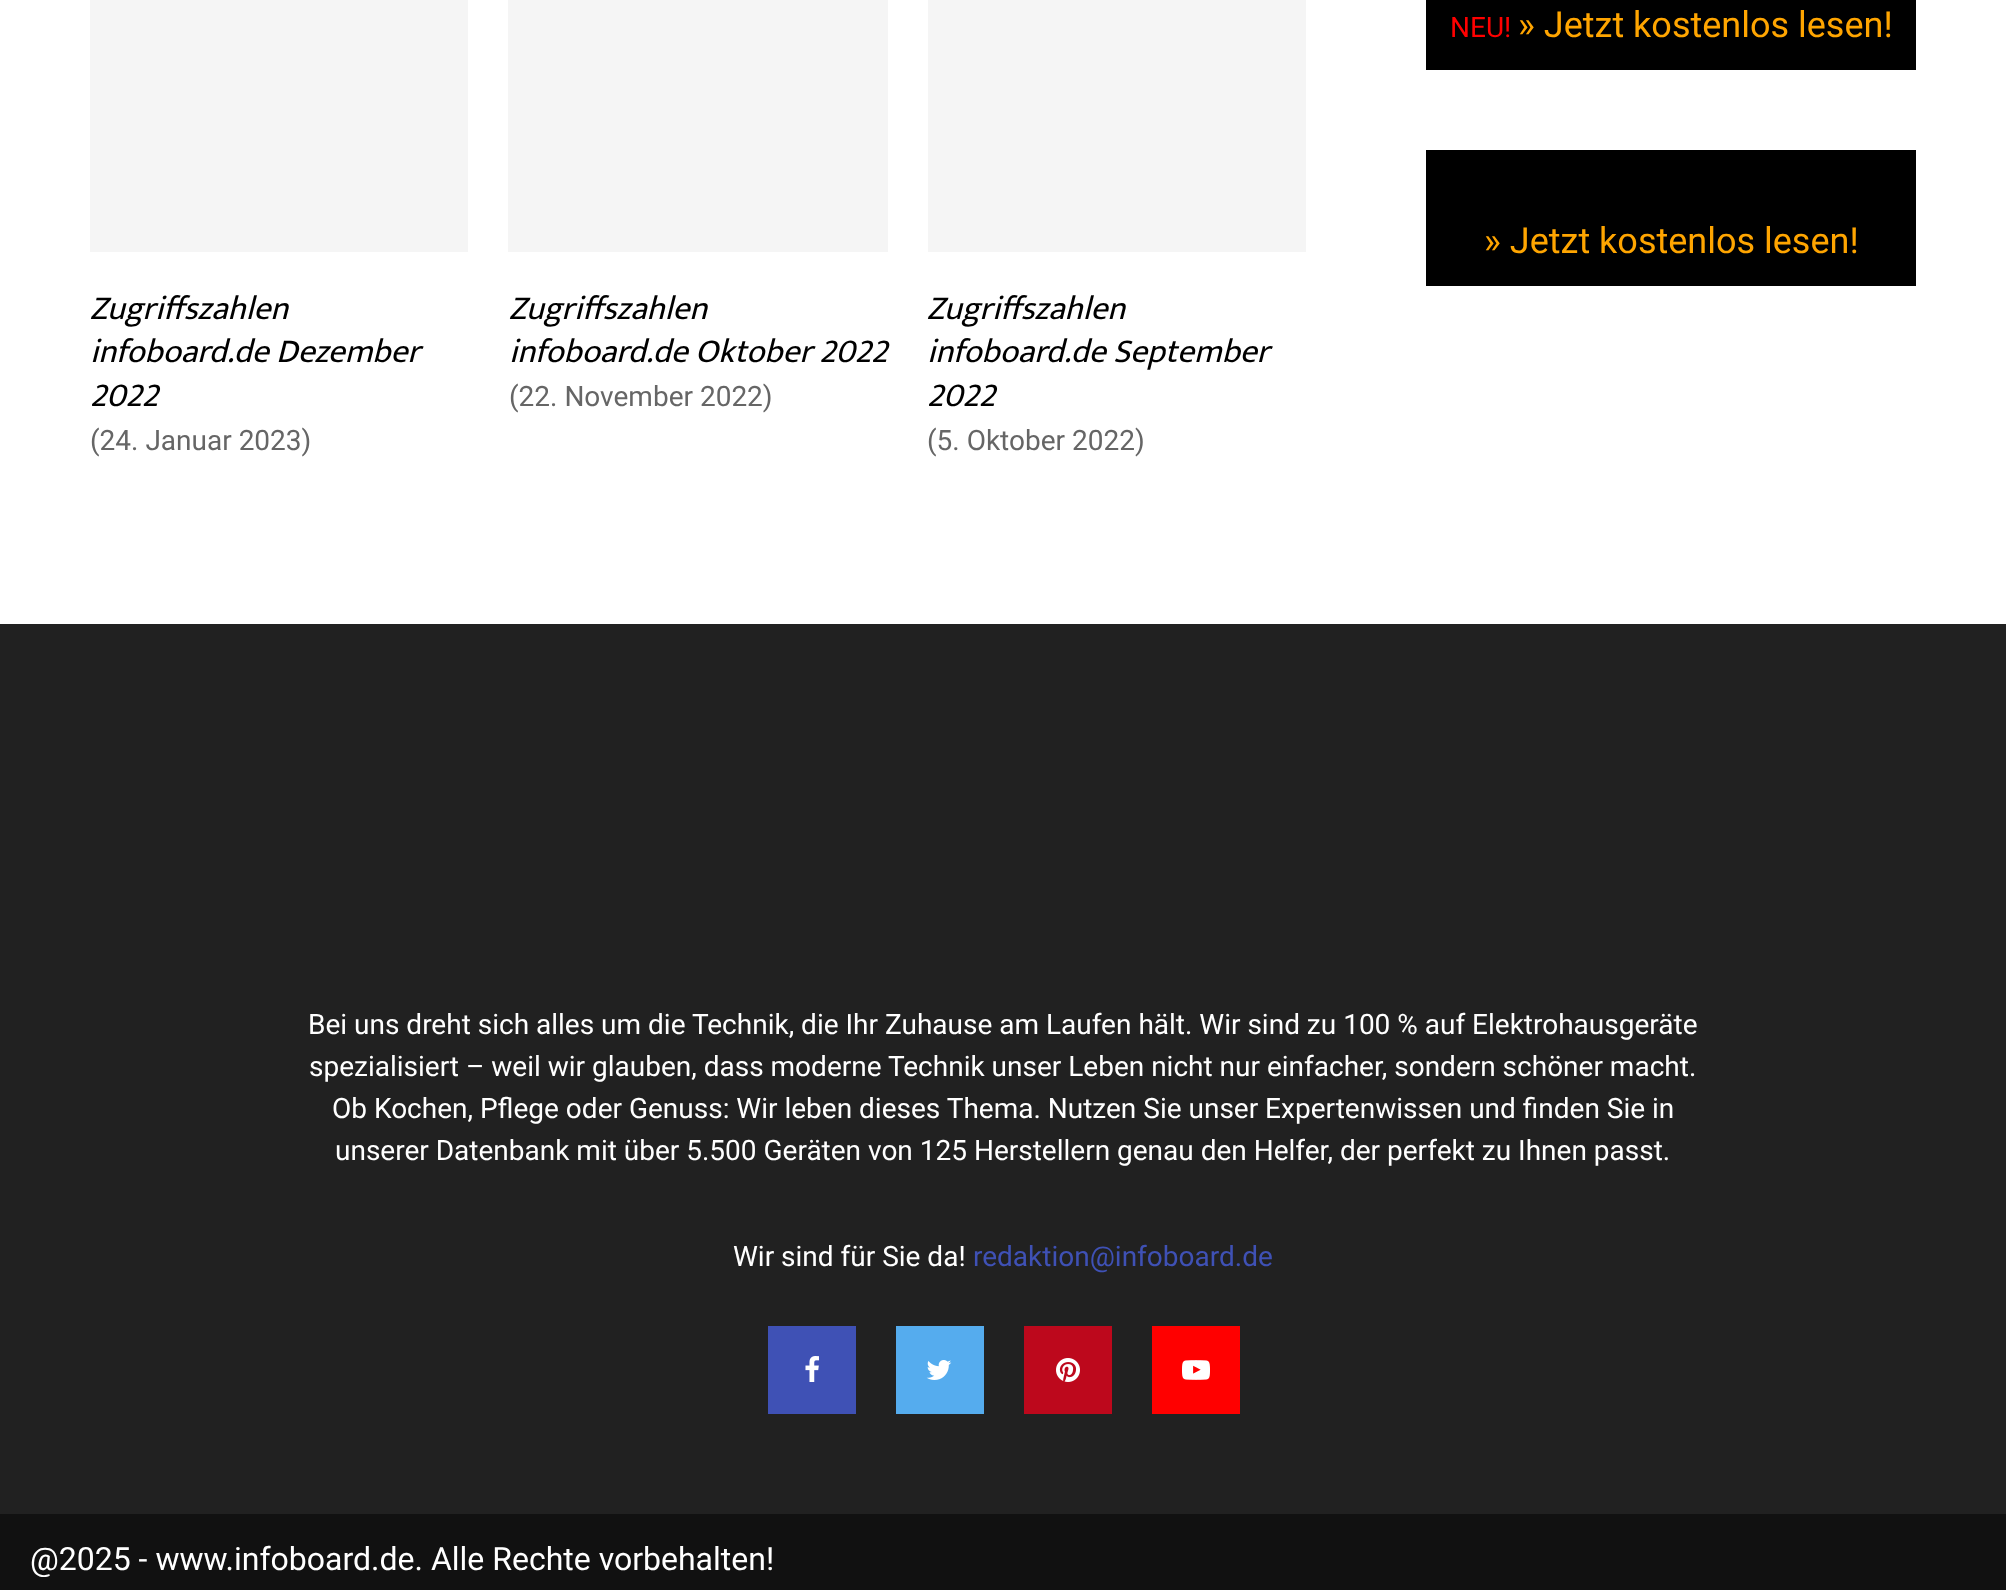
<svg xmlns="http://www.w3.org/2000/svg" width="2006" height="1590" viewBox="0 0 2006 1590">
  <rect width="100%" height="100%" fill="#ffffff"/>
  <rect x="1426" y="0" width="490" height="70" fill="#000000"/>
  <text x="1450" y="37" font-family="Roboto" font-size="28" fill="#ff0000">NEU!</text>
  <text x="1518" y="37" font-family="Roboto" font-size="36" fill="#ffa500">» Jetzt kostenlos lesen!</text>
  <rect x="1426" y="150" width="490" height="136" fill="#000000"/>
  <text x="1484" y="253" font-family="Roboto" font-size="36" fill="#ffa500">» Jetzt kostenlos lesen!</text>
  <rect x="90" y="0" width="378" height="252" fill="#f5f5f5"/>
  <text x="90" y="319" font-family="Mukta Vaani" font-size="33.6" font-style="italic" fill="#000000">Zugriffszahlen</text>
  <text x="90" y="362" font-family="Mukta Vaani" font-size="33.6" font-style="italic" fill="#000000">infoboard.de Dezember</text>
  <text x="90" y="406" font-family="Mukta Vaani" font-size="33.6" font-style="italic" fill="#000000">2022</text>
  <text x="90" y="450" font-family="Roboto" font-size="28" fill="#666666">(24. Januar 2023)</text>
  <rect x="508" y="0" width="380" height="252" fill="#f5f5f5"/>
  <text x="509" y="319" font-family="Mukta Vaani" font-size="33.6" font-style="italic" fill="#000000">Zugriffszahlen</text>
  <text x="509" y="362" font-family="Mukta Vaani" font-size="33.6" font-style="italic" fill="#000000">infoboard.de Oktober 2022</text>
  <text x="509" y="406" font-family="Roboto" font-size="28" fill="#666666">(22. November 2022)</text>
  <rect x="928" y="0" width="378" height="252" fill="#f5f5f5"/>
  <text x="927" y="319" font-family="Mukta Vaani" font-size="33.6" font-style="italic" fill="#000000">Zugriffszahlen</text>
  <text x="927" y="362" font-family="Mukta Vaani" font-size="33.6" font-style="italic" fill="#000000">infoboard.de September</text>
  <text x="927" y="406" font-family="Mukta Vaani" font-size="33.6" font-style="italic" fill="#000000">2022</text>
  <text x="927" y="450" font-family="Roboto" font-size="28" fill="#666666">(5. Oktober 2022)</text>
  <rect x="0" y="624" width="2006" height="890" fill="#212121"/>
  <text x="308" y="1034" font-family="Roboto" font-size="28" fill="#ffffff">Bei uns dreht sich alles um die Technik, die Ihr Zuhause am Laufen hält. Wir sind zu 100 % auf Elektrohausgeräte</text>
  <text x="309" y="1076" font-family="Roboto" font-size="28" fill="#ffffff">spezialisiert – weil wir glauben, dass moderne Technik unser Leben nicht nur einfacher, sondern schöner macht.</text>
  <text x="332" y="1118" font-family="Roboto" font-size="28" fill="#ffffff">Ob Kochen, Pflege oder Genuss: Wir leben dieses Thema. Nutzen Sie unser Expertenwissen und finden Sie in</text>
  <text x="335" y="1160" font-family="Roboto" font-size="28" fill="#ffffff">unserer Datenbank mit über 5.500 Geräten von 125 Herstellern genau den Helfer, der perfekt zu Ihnen passt.</text>
  <text x="733" y="1266" font-family="Roboto" font-size="28" fill="#ffffff">Wir sind für Sie da!</text>
  <text x="973" y="1266" font-family="Roboto" font-size="28" fill="#3f51b5">redaktion@infoboard.de</text>
  <rect x="768" y="1326" width="88" height="88" fill="#3f51b5"/>
  <image x="805" y="1356" width="14" height="26" href="img1.png"/>
  <rect x="896" y="1326" width="88" height="88" fill="#55acee"/>
  <image x="926" y="1360" width="26" height="20" href="img2.png"/>
  <rect x="1024" y="1326" width="88" height="88" fill="#bd081c"/>
  <image x="1056" y="1358" width="24" height="24" href="img3.png"/>
  <rect x="1152" y="1326" width="88" height="88" fill="#ff0000"/>
  <image x="1182" y="1360" width="28" height="20" href="img4.png"/>
  <rect x="0" y="1514" width="2006" height="76" fill="#111111"/>
  <text x="30" y="1570" font-family="Roboto" font-size="32" fill="#ffffff">@2025 - www.infoboard.de. Alle Rechte vorbehalten!</text>
</svg>
